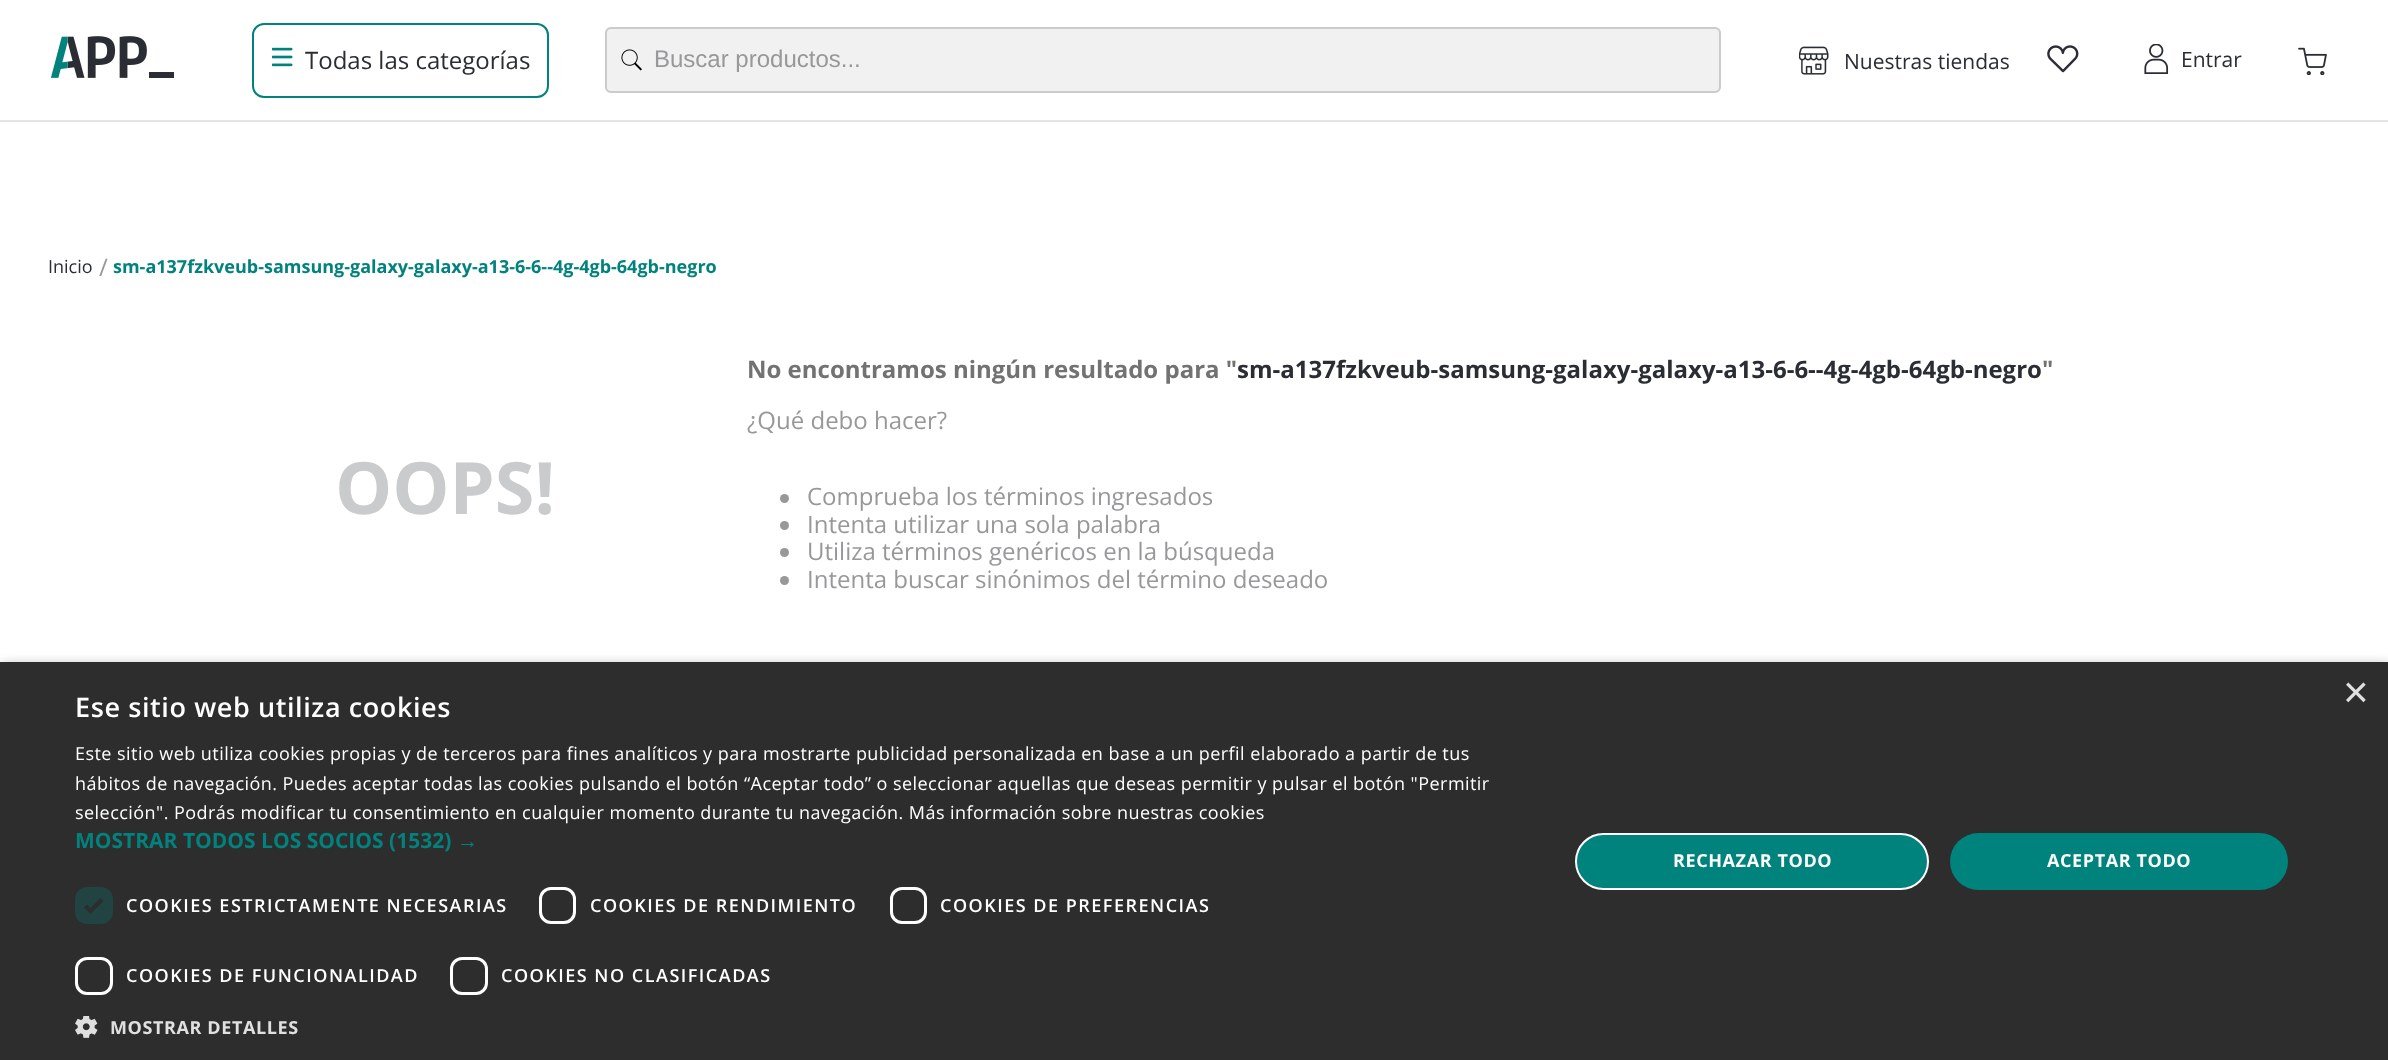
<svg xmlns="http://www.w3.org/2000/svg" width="2388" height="1060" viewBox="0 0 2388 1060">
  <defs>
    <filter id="blur1" x="-50%" y="-200%" width="200%" height="500%"><feGaussianBlur stdDeviation="6"/></filter>
  </defs>
  <rect width="100%" height="100%" fill="#ffffff"/>
  <rect x="0" y="120" width="2388" height="2" fill="#e3e4e6"/>
  <image x="51" y="36" width="123" height="42" href="img1.png"/>
  <rect x="253" y="24" width="295" height="73" rx="11" fill="none" stroke="#02827d" stroke-width="2"/>
  <image x="272" y="47" width="21" height="20" href="img2.png"/>
  <text x="305" y="69" font-family="Open Sans" font-size="24" fill="#2a2d33">Todas las categorías</text>
  <rect x="605" y="27" width="1116" height="66" rx="6" fill="#f1f1f1"/>
  <image x="621" y="49" width="21" height="22" href="img3.png"/>
  <rect x="606" y="28" width="1114" height="64" rx="5" fill="none" stroke="#cacbcc" stroke-width="2"/>
  <text x="654" y="67" font-family="Liberation Sans" font-size="24" fill="#979899">Buscar productos...</text>
  <image x="1799" y="46" width="30" height="29" href="img4.png"/>
  <text x="1844" y="69" font-family="Open Sans" font-size="21" fill="#2a2d33">Nuestras tiendas</text>
  <image x="2047" y="45" width="32" height="28" href="img5.png"/>
  <image x="2144" y="44" width="25" height="30" href="img6.png"/>
  <text x="2181" y="67" font-family="Open Sans" font-size="21" fill="#2a2d33">Entrar</text>
  <image x="2298" y="47" width="29" height="28" href="img7.png"/>
  <text x="48" y="273" font-family="Open Sans" font-size="18" fill="#2a2d33">Inicio</text>
  <text x="99" y="276" font-family="Open Sans" font-size="24" fill="#979899">/</text>
  <text x="113" y="273" font-family="Open Sans" font-size="18" font-weight="bold" fill="#02827d">sm-a137fzkveub-samsung-galaxy-galaxy-a13-6-6--4g-4gb-64gb-negro</text>
  <text x="335" y="514" font-family="Open Sans" font-size="72" font-weight="bold" fill="#cacbcc">OOPS!</text>
  <text x="747" y="378" font-family="Open Sans" font-size="24" font-weight="bold" fill="#727273">No encontramos ningún resultado para "</text>
  <text x="1237" y="378" font-family="Open Sans" font-size="24" font-weight="bold" fill="#2a2d33">sm-a137fzkveub-samsung-galaxy-galaxy-a13-6-6--4g-4gb-64gb-negro</text>
  <text x="2042" y="378" font-family="Open Sans" font-size="24" font-weight="bold" fill="#727273">"</text>
  <text x="747" y="429" font-family="Open Sans" font-size="24" fill="#979899">¿Qué debo hacer?</text>
  <circle cx="784.5" cy="498.5" r="4.5" fill="#979899"/>
  <text x="807" y="505" font-family="Open Sans" font-size="24" fill="#979899">Comprueba los términos ingresados</text>
  <circle cx="784.5" cy="525.5" r="4.5" fill="#979899"/>
  <text x="807" y="533" font-family="Open Sans" font-size="24" fill="#979899">Intenta utilizar una sola palabra</text>
  <circle cx="784.5" cy="552.5" r="4.5" fill="#979899"/>
  <text x="807" y="560" font-family="Open Sans" font-size="24" fill="#979899">Utiliza términos genéricos en la búsqueda</text>
  <circle cx="784.5" cy="580.5" r="4.5" fill="#979899"/>
  <text x="807" y="588" font-family="Open Sans" font-size="24" fill="#979899">Intenta buscar sinónimos del término deseado</text>
  <rect x="2" y="665" width="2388" height="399" fill="#000000" fill-opacity="0.35" filter="url(#blur1)"/>
  <rect x="0" y="662" width="2388" height="398" fill="#2d2d2d"/>
  <text x="2343" y="707" font-family="Liberation Sans" font-size="44" fill="#e0e0e0">×</text>
  <text x="75" y="717" font-family="Open Sans" font-size="27" font-weight="600" letter-spacing="0.6" fill="#ffffff">Ese sitio web utiliza cookies</text>
  <text x="75" y="760" font-family="Open Sans" font-size="18" letter-spacing="0.45" fill="#ffffff">Este sitio web utiliza cookies propias y de terceros para fines analíticos y para mostrarte publicidad personalizada en base a un perfil elaborado a partir de tus</text>
  <text x="75" y="790" font-family="Open Sans" font-size="18" letter-spacing="0.45" fill="#ffffff">hábitos de navegación. Puedes aceptar todas las cookies pulsando el botón “Aceptar todo” o seleccionar aquellas que deseas permitir y pulsar el botón "Permitir</text>
  <text x="75" y="819" font-family="Open Sans" font-size="18" letter-spacing="0.45" fill="#ffffff">selección". Podrás modificar tu consentimiento en cualquier momento durante tu navegación. Más información sobre nuestras cookies</text>
  <text x="75" y="848" font-family="Open Sans" font-size="21" font-weight="bold" fill="#02827d">MOSTRAR TODOS LOS SOCIOS (1532)</text>
  <text x="457" y="848" font-family="Liberation Sans" font-size="21" font-weight="bold" fill="#02827d">→</text>
  <rect x="75" y="887" width="38" height="37" rx="12" fill="#214342"/>
  <path d="M85.5 906L90.5 911L102 899.5" fill="none" stroke="#2d2d2d" stroke-width="3.9"/>
  <text x="126" y="912" font-family="Open Sans" font-size="18" font-weight="600" letter-spacing="1.5" fill="#ffffff">COOKIES ESTRICTAMENTE NECESARIAS</text>
  <rect x="540.5" y="888.5" width="34" height="34" rx="10.5" fill="none" stroke="#ffffff" stroke-width="3"/>
  <text x="590" y="912" font-family="Open Sans" font-size="18" font-weight="600" letter-spacing="1.5" fill="#ffffff">COOKIES DE RENDIMIENTO</text>
  <rect x="891.5" y="888.5" width="34" height="34" rx="10.5" fill="none" stroke="#ffffff" stroke-width="3"/>
  <text x="940" y="912" font-family="Open Sans" font-size="18" font-weight="600" letter-spacing="1.5" fill="#ffffff">COOKIES DE PREFERENCIAS</text>
  <rect x="76.5" y="958.5" width="35" height="35" rx="10.5" fill="none" stroke="#ffffff" stroke-width="3"/>
  <text x="126" y="982" font-family="Open Sans" font-size="18" font-weight="600" letter-spacing="1.5" fill="#ffffff">COOKIES DE FUNCIONALIDAD</text>
  <rect x="451.5" y="958.5" width="35" height="35" rx="10.5" fill="none" stroke="#ffffff" stroke-width="3"/>
  <text x="501" y="982" font-family="Open Sans" font-size="18" font-weight="600" letter-spacing="1.5" fill="#ffffff">COOKIES NO CLASIFICADAS</text>
  <image x="75" y="1016" width="23" height="22" href="img8.png"/>
  <text x="110" y="1034" font-family="Open Sans" font-size="18" font-weight="bold" letter-spacing="0.6" fill="#e0e0e0">MOSTRAR DETALLES</text>
  <rect x="1576" y="834" width="352" height="55" rx="27.5" fill="#00827d" stroke="#ffffff" stroke-width="2"/>
  <text x="1673" y="867" font-family="Open Sans" font-size="18" font-weight="bold" letter-spacing="0.6" fill="#ffffff">RECHAZAR TODO</text>
  <rect x="1950" y="833" width="338" height="57" rx="28.5" fill="#00827d"/>
  <text x="2047" y="867" font-family="Open Sans" font-size="18" font-weight="bold" letter-spacing="0.6" fill="#ffffff">ACEPTAR TODO</text>
</svg>
